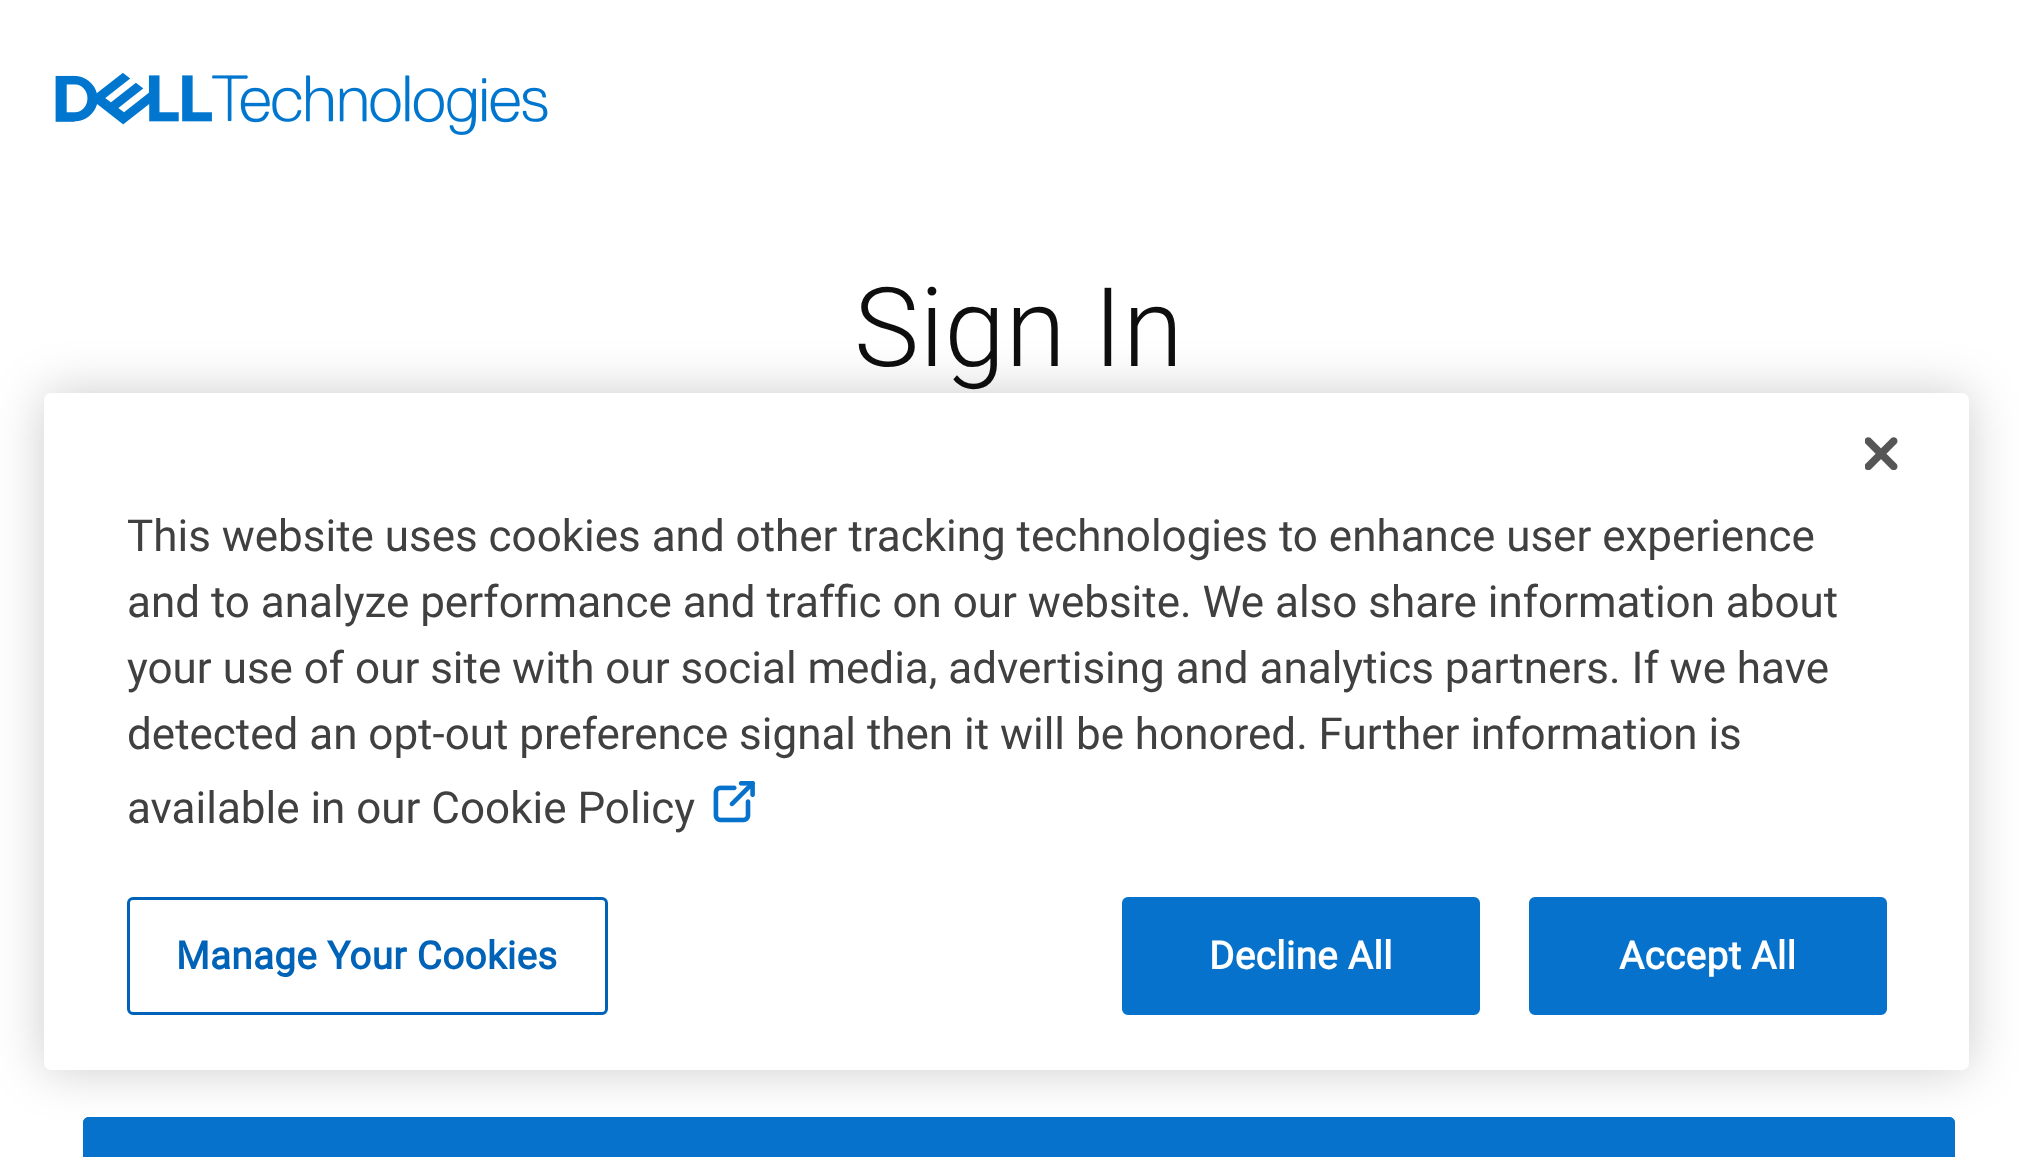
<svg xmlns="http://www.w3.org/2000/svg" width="2037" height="1157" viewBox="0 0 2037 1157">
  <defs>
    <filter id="blur1" x="-50%" y="-200%" width="200%" height="500%"><feGaussianBlur stdDeviation="25"/></filter>
  </defs>
  <rect width="100%" height="100%" fill="#ffffff"/>
  <image x="55" y="72" width="493" height="63" href="img1.png"/>
  <text x="854" y="366" font-family="Roboto" font-size="110" font-weight="300" letter-spacing="0.25" fill="#0e0e0e">Sign In</text>
  <path d="M89 1117H1949C1952.5 1117 1955 1119.5 1955 1123V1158H83V1123C83 1119.5 85.5 1117 89 1117Z" fill="#0672cb"/>
  <rect x="84.5" y="1118.5" width="1869" height="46" rx="4.5" fill="none" stroke="#0672cb" stroke-width="3"/>
  <rect x="44" y="393" width="1925" height="677" rx="7" fill="#000000" fill-opacity="0.2" filter="url(#blur1)"/>
  <rect x="44" y="393" width="1925" height="677" rx="7" fill="#ffffff"/>
  <image x="1865" y="437" width="33" height="33" href="img2.png"/>
  <text x="127" y="551" font-family="Roboto" font-size="44" fill="#404040">This website uses cookies and other tracking technologies to enhance user experience</text>
  <text x="127" y="617" font-family="Roboto" font-size="44" fill="#404040">and to analyze performance and traffic on our website. We also share information about</text>
  <text x="127" y="683" font-family="Roboto" font-size="44" fill="#404040">your use of our site with our social media, advertising and analytics partners. If we have</text>
  <text x="127" y="749" font-family="Roboto" font-size="44" fill="#404040">detected an opt-out preference signal then it will be honored. Further information is</text>
  <text x="127" y="823" font-family="Roboto" font-size="44" fill="#404040">available in our Cookie Policy</text>
  <image x="713" y="781" width="42" height="42" href="img3.png"/>
  <rect x="128.5" y="898.5" width="478" height="115" rx="4.5" fill="none" stroke="#0063b8" stroke-width="3"/>
  <text x="176" y="969" font-family="Roboto" font-size="38.5" font-weight="bold" letter-spacing="0.4" fill="#0063b8">Manage Your Cookies</text>
  <rect x="1123.5" y="898.5" width="355" height="115" rx="4.5" fill="#0672cb" stroke="#0672cb" stroke-width="3"/>
  <text x="1209" y="969" font-family="Roboto" font-size="38.5" font-weight="bold" letter-spacing="0.4" fill="#ffffff">Decline All</text>
  <rect x="1530.5" y="898.5" width="355" height="115" rx="4.5" fill="#0672cb" stroke="#0672cb" stroke-width="3"/>
  <text x="1619" y="969" font-family="Roboto" font-size="38.5" font-weight="bold" letter-spacing="0.4" fill="#ffffff">Accept All</text>
</svg>
